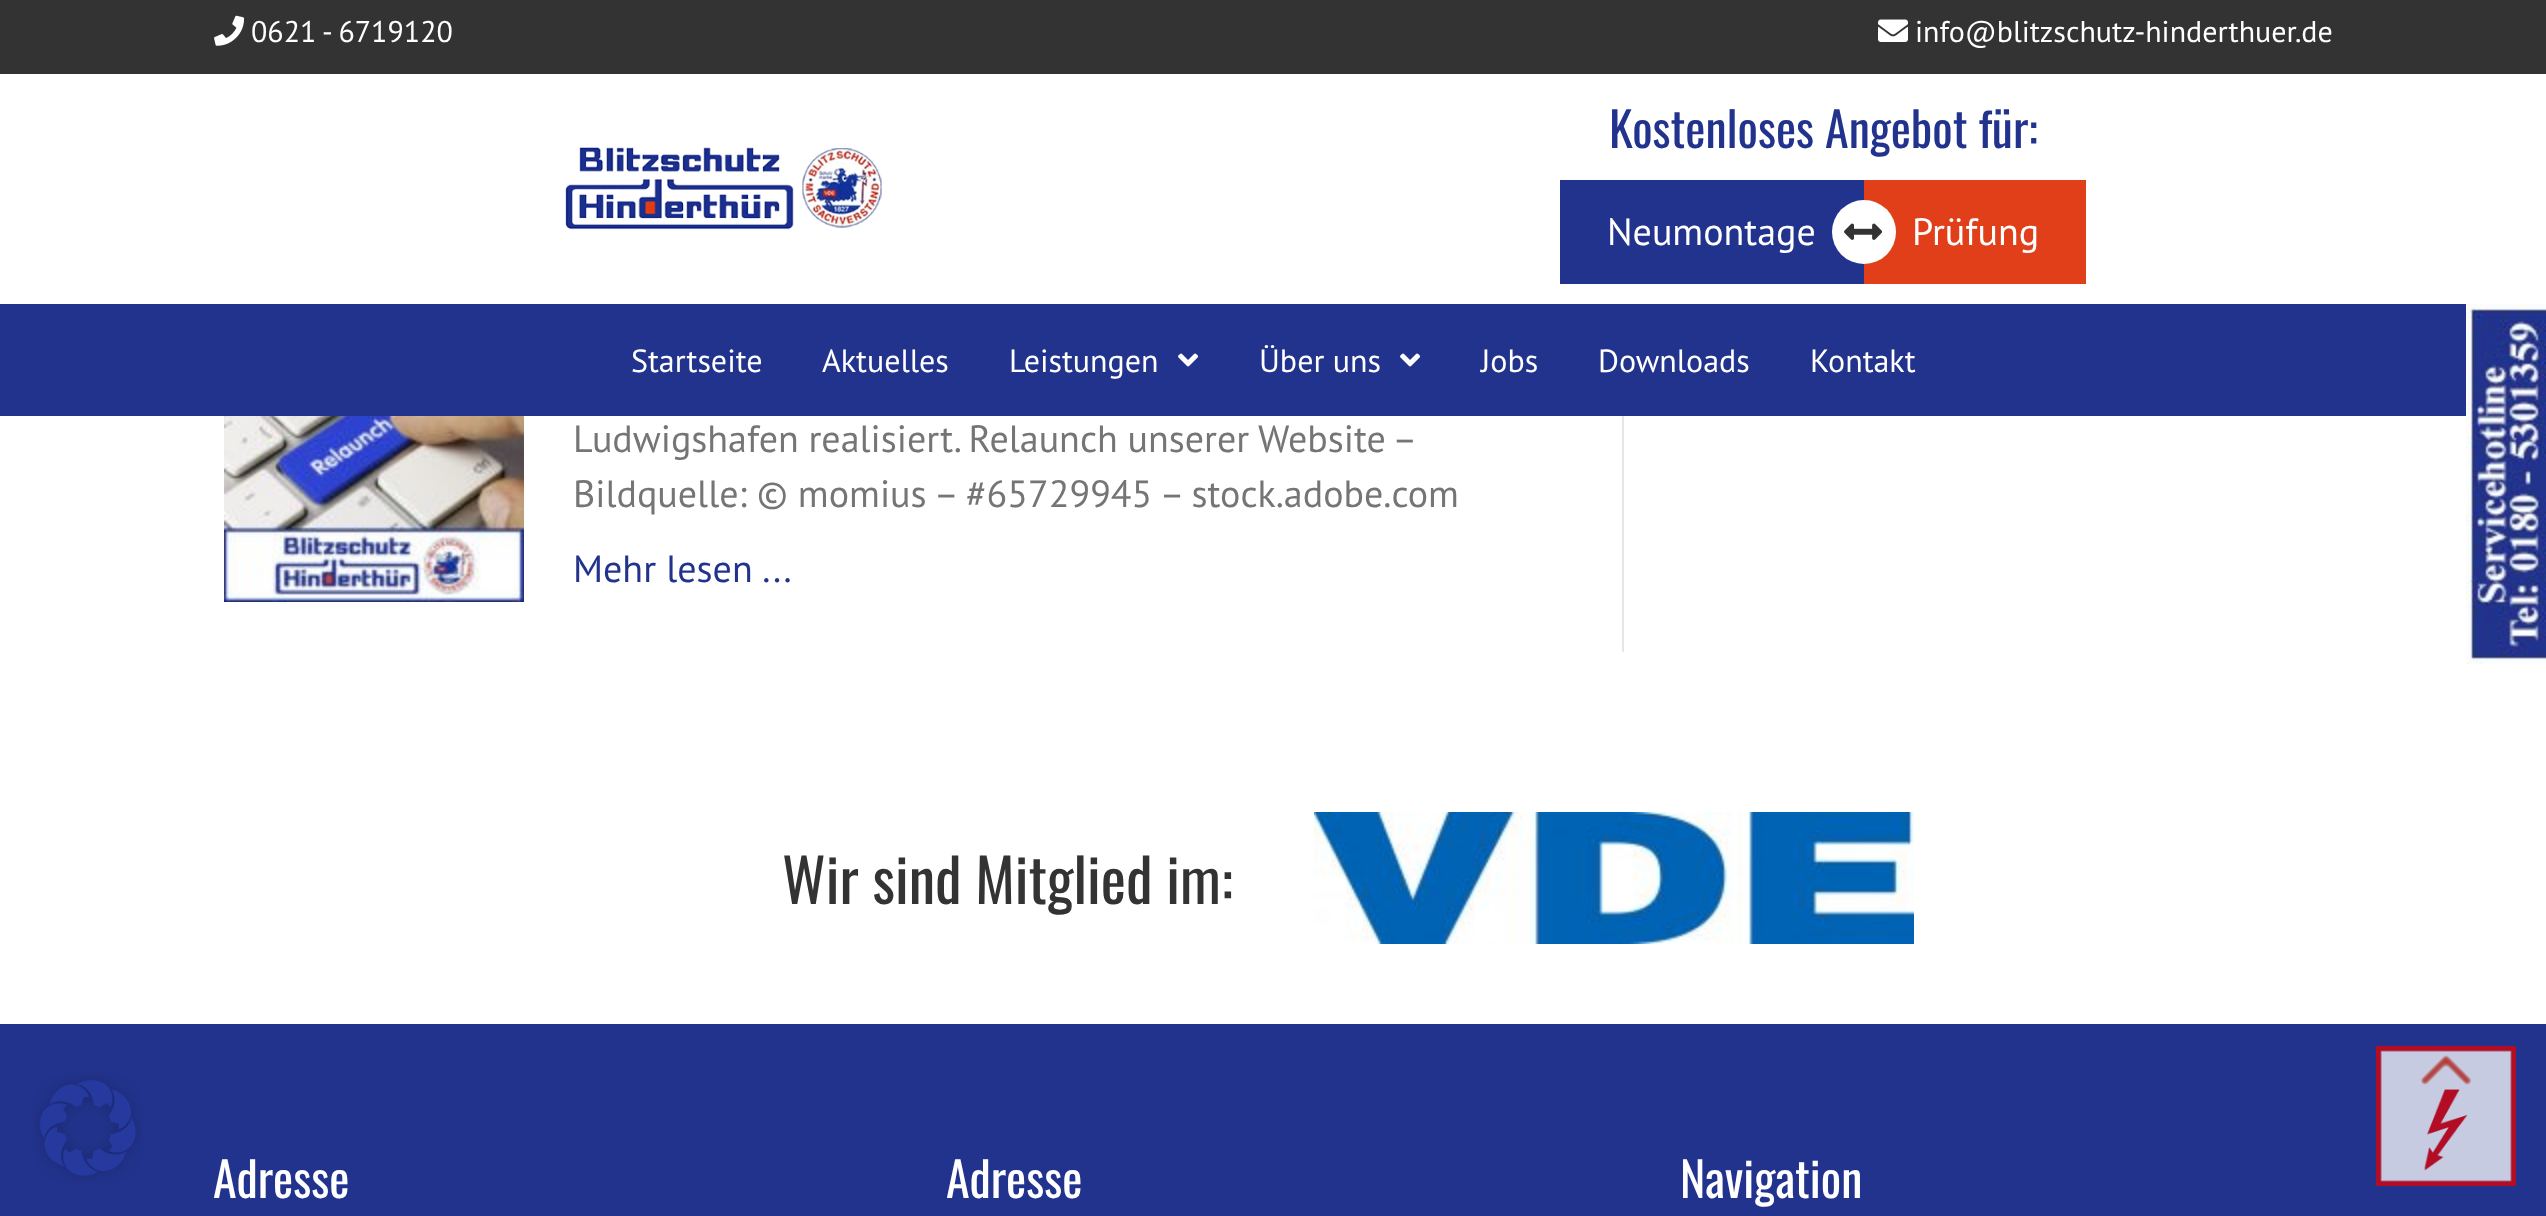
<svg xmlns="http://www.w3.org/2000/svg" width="2546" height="1216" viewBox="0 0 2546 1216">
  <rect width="100%" height="100%" fill="#ffffff"/>
  <rect x="0" y="0" width="2546" height="74" fill="#333333"/>
  <image x="214" y="15" width="31" height="31" href="img1.png"/>
  <text x="251" y="42" font-family="PT Sans" font-size="30" fill="#ffffff">0621 - 6719120</text>
  <image x="1878" y="19" width="30" height="23" href="img2.png"/>
  <text x="1915" y="42" font-family="PT Sans" font-size="30" fill="#ffffff">info@blitzschutz-hinderthuer.de</text>
  <image x="565" y="147" width="317" height="83" href="img3.png"/>
  <text x="1609" y="148" font-family="Oswald" font-size="48" fill="#22338d">Kostenloses Angebot für:</text>
  <rect x="1560" y="180" width="304" height="104" fill="#22338d"/>
  <text x="1607" y="245" font-family="PT Sans" font-size="38" fill="#ffffff">Neumontage</text>
  <rect x="1864" y="180" width="222" height="104" fill="#e13f1a"/>
  <circle cx="1864" cy="232" r="32" fill="#ffffff"/>
  <image x="1844" y="223" width="39" height="17" href="img4.png"/>
  <text x="1912" y="245" font-family="PT Sans" font-size="38" fill="#ffffff">Prüfung</text>
  <rect x="0" y="304" width="2466" height="112" fill="#22338d"/>
  <text x="631" y="372" font-family="PT Sans" font-size="32" fill="#ffffff">Startseite</text>
  <text x="822" y="372" font-family="PT Sans" font-size="32" fill="#ffffff">Aktuelles</text>
  <text x="1009" y="372" font-family="PT Sans" font-size="32" fill="#ffffff">Leistungen</text>
  <image x="1178" y="353" width="20" height="14" href="img5.png"/>
  <text x="1259" y="372" font-family="PT Sans" font-size="32" fill="#ffffff">Über uns</text>
  <image x="1400" y="353" width="20" height="14" href="img5.png"/>
  <text x="1481" y="372" font-family="PT Sans" font-size="32" fill="#ffffff">Jobs</text>
  <text x="1598" y="372" font-family="PT Sans" font-size="32" fill="#ffffff">Downloads</text>
  <text x="1810" y="372" font-family="PT Sans" font-size="32" fill="#ffffff">Kontakt</text>
  <rect x="1622" y="416" width="2" height="236" fill="#e6e6e6"/>
  <image x="224" y="416" width="300" height="186" href="img6.png"/>
  <text x="573" y="452" word-spacing="-0.5" font-family="PT Sans" font-size="38" fill="#757575">Ludwigshafen realisiert. Relaunch unserer Website –</text>
  <text x="573" y="507" font-family="PT Sans" font-size="38" fill="#757575">Bildquelle: © momius – #65729945 – stock.adobe.com</text>
  <text x="573" y="582" font-family="PT Sans" font-size="38" fill="#22338d">Mehr lesen ...</text>
  <text x="782" y="904" font-family="Oswald" font-size="60" fill="#333333">Wir sind Mitglied im:</text>
  <image x="1314" y="812" width="600" height="132" href="img7.png"/>
  <rect x="0" y="1024" width="2546" height="192" fill="#22338d"/>
  <text x="213" y="1198" font-family="Oswald" font-size="48" fill="#ffffff">Adresse</text>
  <text x="946" y="1198" font-family="Oswald" font-size="48" fill="#ffffff">Adresse</text>
  <text x="1680" y="1198" font-family="Oswald" font-size="48" fill="#ffffff">Navigation</text>
  <image x="2466" y="304" width="80" height="360" href="img8.png"/>
  <image x="33" y="1073" width="110" height="110" href="img9.png"/>
  <image x="2376" y="1046" width="140" height="140" href="img10.png"/>
</svg>
